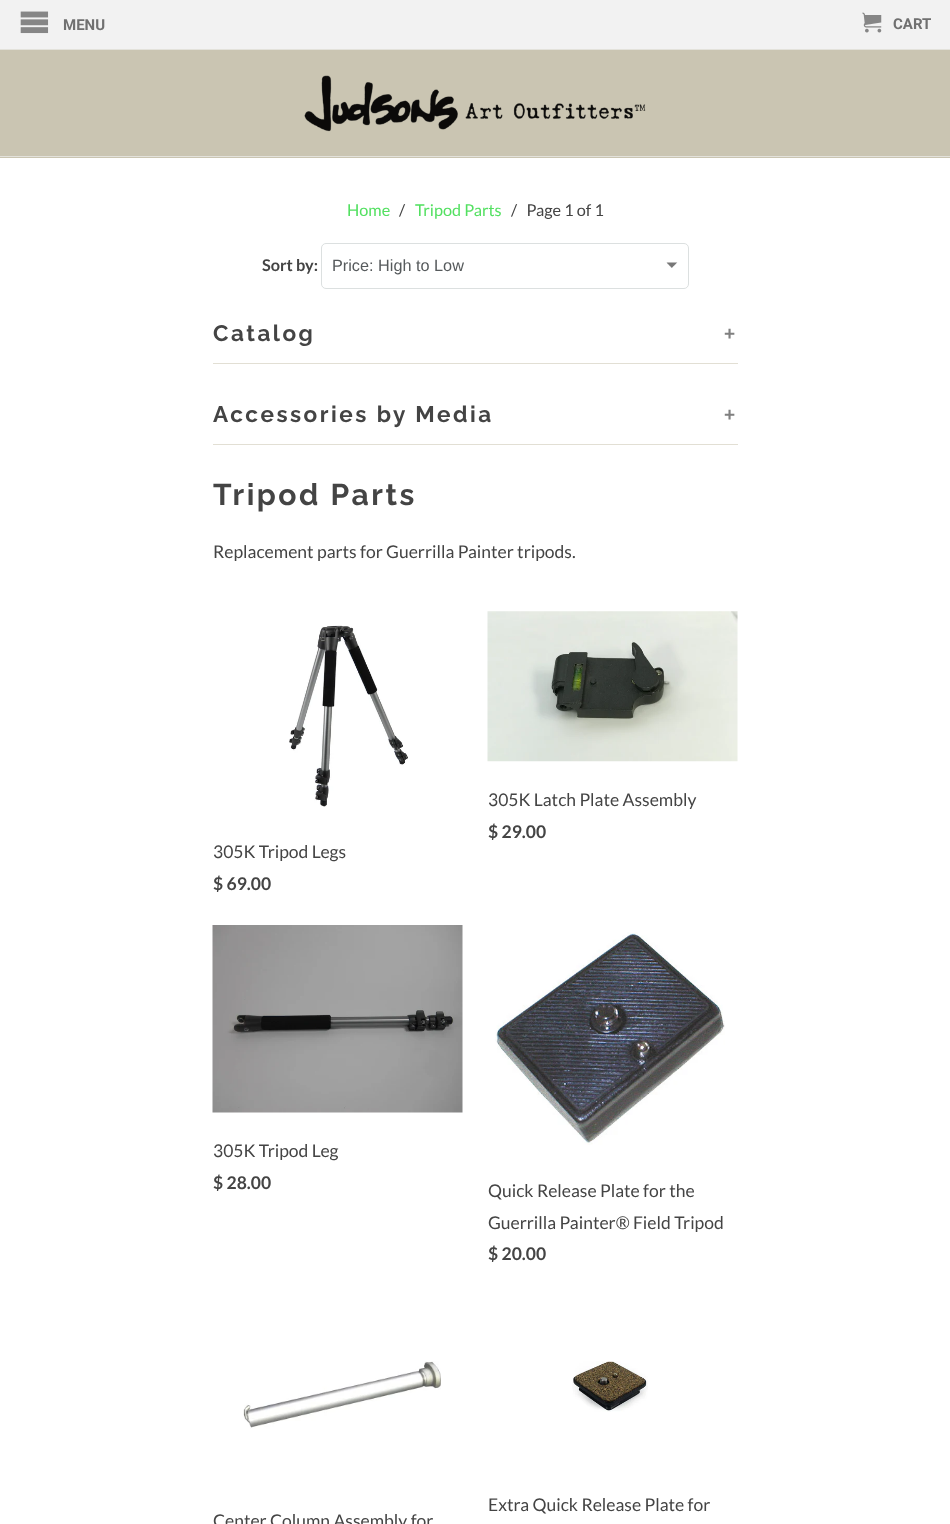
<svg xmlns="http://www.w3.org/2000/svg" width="950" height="1524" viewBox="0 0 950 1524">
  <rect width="100%" height="100%" fill="#ffffff"/>
  <rect x="0" y="0" width="950" height="49" fill="#f2f2f2"/>
  <rect x="0" y="49" width="950" height="1" fill="#e3e2db"/>
  <image x="20" y="11" width="29" height="23" href="img1.png"/>
  <text x="63" y="30" font-family="Roboto" font-size="15" font-weight="bold" fill="#707070">MENU</text>
  <image x="862" y="12" width="20" height="21" href="img2.png"/>
  <text x="893" y="29" font-family="Roboto" font-size="15" font-weight="bold" fill="#707070">CART</text>
  <rect x="0" y="50" width="950" height="108" fill="#cac5b2"/>
  <rect x="0" y="156" width="950" height="1" fill="#e3e2db"/>
  <image x="304" y="75" width="342" height="57" href="img3.png"/>
  <text x="347" y="216" font-family="Lato" font-size="16.25" fill="#53e061">Home</text>
  <text x="399" y="216" font-family="Lato" font-size="16.25" fill="#444444">/</text>
  <text x="415" y="216" font-family="Lato" font-size="16.25" fill="#53e061">Tripod Parts</text>
  <text x="511" y="216" font-family="Lato" font-size="16.25" fill="#444444" xml:space="preserve">/   Page 1 of 1</text>
  <text x="262" y="271" font-family="Lato" font-size="16.25" font-weight="bold" fill="#444444">Sort by:</text>
  <image x="666" y="262" width="12" height="6" href="img4.png"/>
  <rect x="321.5" y="243.5" width="367" height="45" rx="4.5" fill="none" stroke="#dce0e0"/>
  <text x="332" y="271" font-family="Liberation Sans" font-size="16.25" fill="#565a5c">Price: High to Low</text>
  <rect x="213" y="363" width="525" height="1" fill="#e2dfd4"/>
  <text x="213" y="341" font-family="Raleway" font-size="22.5" font-weight="bold" letter-spacing="2.5" fill="#444444">Catalog</text>
  <text x="724" y="340" font-family="Liberation Sans" font-size="19" font-weight="bold" letter-spacing="2.5" fill="#808080">+</text>
  <rect x="213" y="444" width="525" height="1" fill="#e2dfd4"/>
  <text x="213" y="422" font-family="Raleway" font-size="22.5" font-weight="bold" letter-spacing="2.5" fill="#444444">Accessories by Media</text>
  <text x="724" y="421" font-family="Liberation Sans" font-size="19" font-weight="bold" letter-spacing="2.5" fill="#808080">+</text>
  <text x="213" y="505" font-family="Raleway" font-size="30" font-weight="bold" letter-spacing="2.5" fill="#444444">Tripod Parts</text>
  <text x="213" y="558" font-family="Lato" font-size="17.5" fill="#444444">Replacement parts for Guerrilla Painter tripods.</text>
  <image x="487" y="611" width="251" height="151" href="img5.png"/>
  <text x="488" y="806" font-family="Lato" font-size="17.5" fill="#444444">305K Latch Plate Assembly</text>
  <text x="488" y="838" font-family="Lato" font-size="17.5" font-weight="bold" fill="#444444">$ 29.00</text>
  <image x="289" y="625" width="119" height="182" href="img6.png"/>
  <text x="213" y="858" font-family="Lato" font-size="17.5" fill="#444444">305K Tripod Legs</text>
  <text x="213" y="890" font-family="Lato" font-size="17.5" font-weight="bold" fill="#444444">$ 69.00</text>
  <image x="212" y="925" width="251" height="188" href="img7.png"/>
  <text x="213" y="1157" font-family="Lato" font-size="17.5" fill="#444444">305K Tripod Leg</text>
  <text x="213" y="1189" font-family="Lato" font-size="17.5" font-weight="bold" fill="#444444">$ 28.00</text>
  <image x="495" y="932" width="230" height="213" href="img8.png"/>
  <text x="488" y="1197" font-family="Lato" font-size="17.5" fill="#444444">Quick Release Plate for the</text>
  <text x="488" y="1229" font-family="Lato" font-size="17.5" fill="#444444">Guerrilla Painter® Field Tripod</text>
  <text x="488" y="1260" font-family="Lato" font-size="17.5" font-weight="bold" fill="#444444">$ 20.00</text>
  <image x="572" y="1361" width="76" height="51" href="img9.png"/>
  <text x="488" y="1511" font-family="Lato" font-size="17.5" fill="#444444">Extra Quick Release Plate for</text>
  <image x="243" y="1361" width="198" height="68" href="img10.png"/>
  <text x="213" y="1527" font-family="Lato" font-size="17.5" fill="#444444">Center Column Assembly for</text>
</svg>
